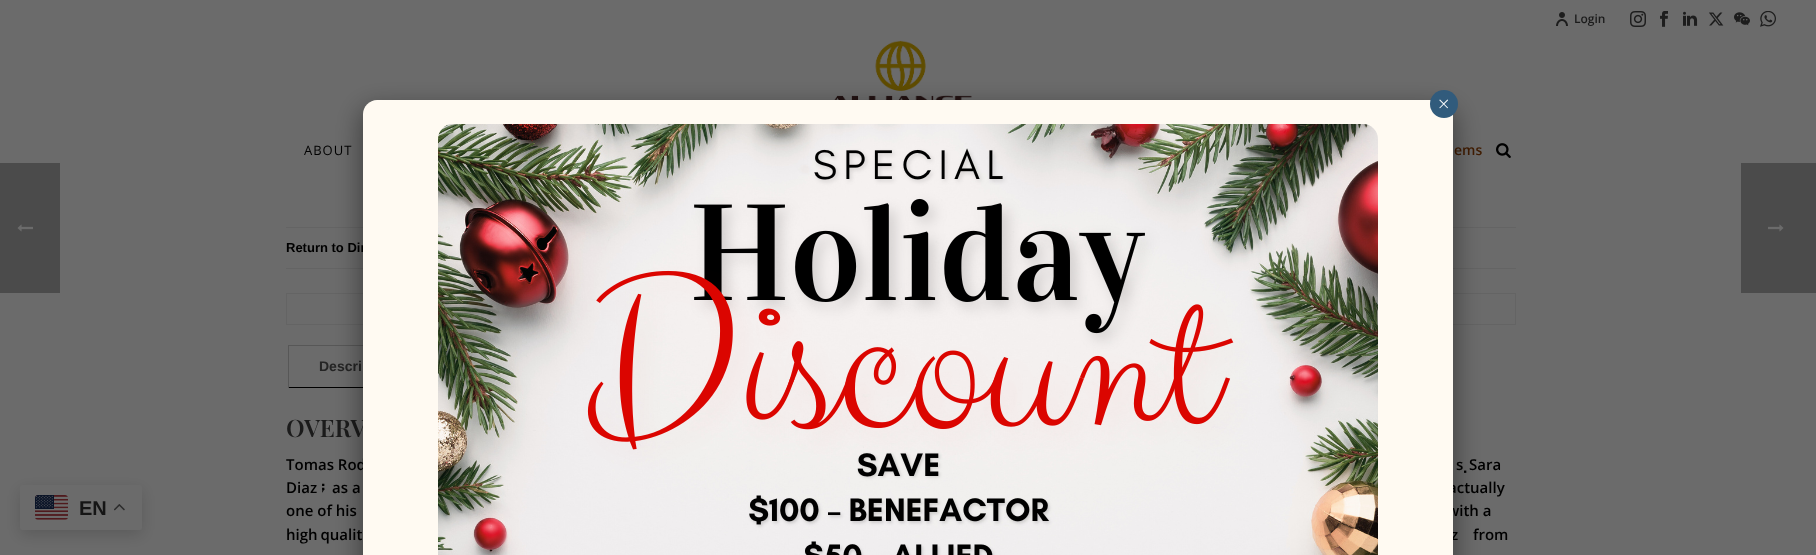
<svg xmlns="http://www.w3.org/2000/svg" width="1816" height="555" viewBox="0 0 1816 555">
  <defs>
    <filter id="blur1" x="-50%" y="-200%" width="200%" height="500%"><feGaussianBlur stdDeviation="12"/></filter>
    <filter id="blur2" x="-50%" y="-200%" width="200%" height="500%"><feGaussianBlur stdDeviation="7.5"/></filter>
  </defs>
  <rect width="100%" height="100%" fill="#6b6b6b"/>
  <image x="1556" y="12" width="12" height="14" href="img1.png"/>
  <text x="1574" y="23" font-family="Open Sans" font-size="12" font-weight="600" fill="#1b1b1b">Login</text>
  <image x="1630" y="11" width="16" height="16" href="img2.png"/>
  <image x="1660" y="11" width="8" height="16" href="img3.png"/>
  <image x="1683" y="11" width="15" height="15" href="img4.png"/>
  <image x="1709" y="12" width="15" height="14" href="img5.png"/>
  <image x="1734" y="12" width="16" height="14" href="img6.png"/>
  <image x="1760" y="11" width="16" height="16" href="img7.png"/>
  <image x="834" y="40" width="138" height="60" href="img8.png"/>
  <text x="304" y="155" font-family="Open Sans" font-size="13" letter-spacing="1" fill="#000000">ABOUT</text>
  <text x="1454" y="155" font-family="Open Sans" font-size="14" font-weight="600" fill="#411c01">ems</text>
  <image x="1496" y="143" width="15" height="15" href="img9.png"/>
  <rect x="286" y="227" width="1230" height="1" fill="#646464"/>
  <rect x="286" y="268" width="1230" height="1" fill="#646464"/>
  <text x="286" y="252" font-family="Liberation Sans" font-size="13" font-weight="bold" fill="#000000">Return to Dir</text>
  <rect x="286.5" y="293.5" width="1229" height="31" fill="none" stroke="#646464"/>
  <rect x="288" y="345" width="75" height="1" fill="#575757"/>
  <rect x="288" y="387" width="75" height="1" fill="#000000"/>
  <rect x="288" y="345" width="1" height="43" fill="#575757"/>
  <text x="319" y="371" font-family="Liberation Sans" font-size="14" font-weight="bold" fill="#242424">Descri</text>
  <text x="286" y="437" font-family="Playfair Display" font-size="24" font-weight="600" fill="#1b1b1b">OVERV</text>
  <text x="286" y="470" font-family="Open Sans" font-size="15" font-weight="600" fill="#000000">Tomas Rod</text>
  <text x="1456" y="470" font-family="Open Sans" font-size="15" font-weight="600" fill="#000000">s</text>
  <text x="1469" y="470" font-family="Open Sans" font-size="15" font-weight="600" fill="#000000">Sara</text>
  <text x="1464" y="470" font-family="Digital Numbers" font-size="15" font-weight="bold" fill="#000000">.</text>
  <text x="286" y="493" font-family="Open Sans" font-size="15" font-weight="600" fill="#000000">Diaz</text>
  <text x="317" y="493" font-family="Digital Numbers" font-size="15" font-weight="bold" fill="#000000">;</text>
  <text x="332" y="493" font-family="Open Sans" font-size="15" font-weight="600" fill="#000000">as a</text>
  <text x="1448" y="493" font-family="Open Sans" font-size="15" font-weight="600" fill="#000000">actually</text>
  <text x="286" y="516" font-family="Open Sans" font-size="15" font-weight="600" fill="#000000">one of his</text>
  <text x="1447" y="516" font-family="Open Sans" font-size="15" font-weight="600" fill="#000000">with a</text>
  <text x="286" y="540" word-spacing="-1" font-family="Open Sans" font-size="15" font-weight="600" fill="#000000">high qualit</text>
  <text x="1451" y="540" word-spacing="-1" font-family="Open Sans" font-size="15" font-weight="600" fill="#000000">z</text>
  <text x="1473" y="540" font-family="Open Sans" font-size="15" font-weight="600" fill="#000000">from</text>
  <rect x="359" y="106" width="1098" height="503" rx="18" fill="#020202" fill-opacity="0.37" filter="url(#blur1)"/>
  <path d="M377 100H1439C1446.5 100 1453 106.5 1453 114V555H363V114C363 106.5 369.5 100 377 100Z" fill="#fffaf2"/>
  <circle cx="1444" cy="104" r="14" fill="#315b7c"/>
  <text x="1438" y="111" font-family="Open Sans" font-size="20" font-weight="300" fill="#ffffff">×</text>
  <image x="438" y="124" width="940" height="431" href="img10.png"/>
  <rect x="0" y="163" width="60" height="130" fill="#4b4b4b"/>
  <image x="17" y="224" width="16" height="8" href="img11.png"/>
  <rect x="1741" y="163" width="75" height="130" fill="#4b4b4b"/>
  <image x="1768" y="224" width="16" height="8" href="img12.png"/>
  <rect x="20" y="490" width="122" height="45" rx="2" fill="#000000" fill-opacity="0.15" filter="url(#blur2)"/>
  <rect x="20" y="485" width="122" height="45" rx="2" fill="#6b6b6b"/>
  <image x="35" y="495" width="33" height="25" href="img13.png"/>
  <text x="79" y="515" font-family="Liberation Sans" font-size="20" font-weight="bold" fill="#151515">EN</text>
  <image x="114" y="504" width="11" height="7" href="img14.png"/>
</svg>
